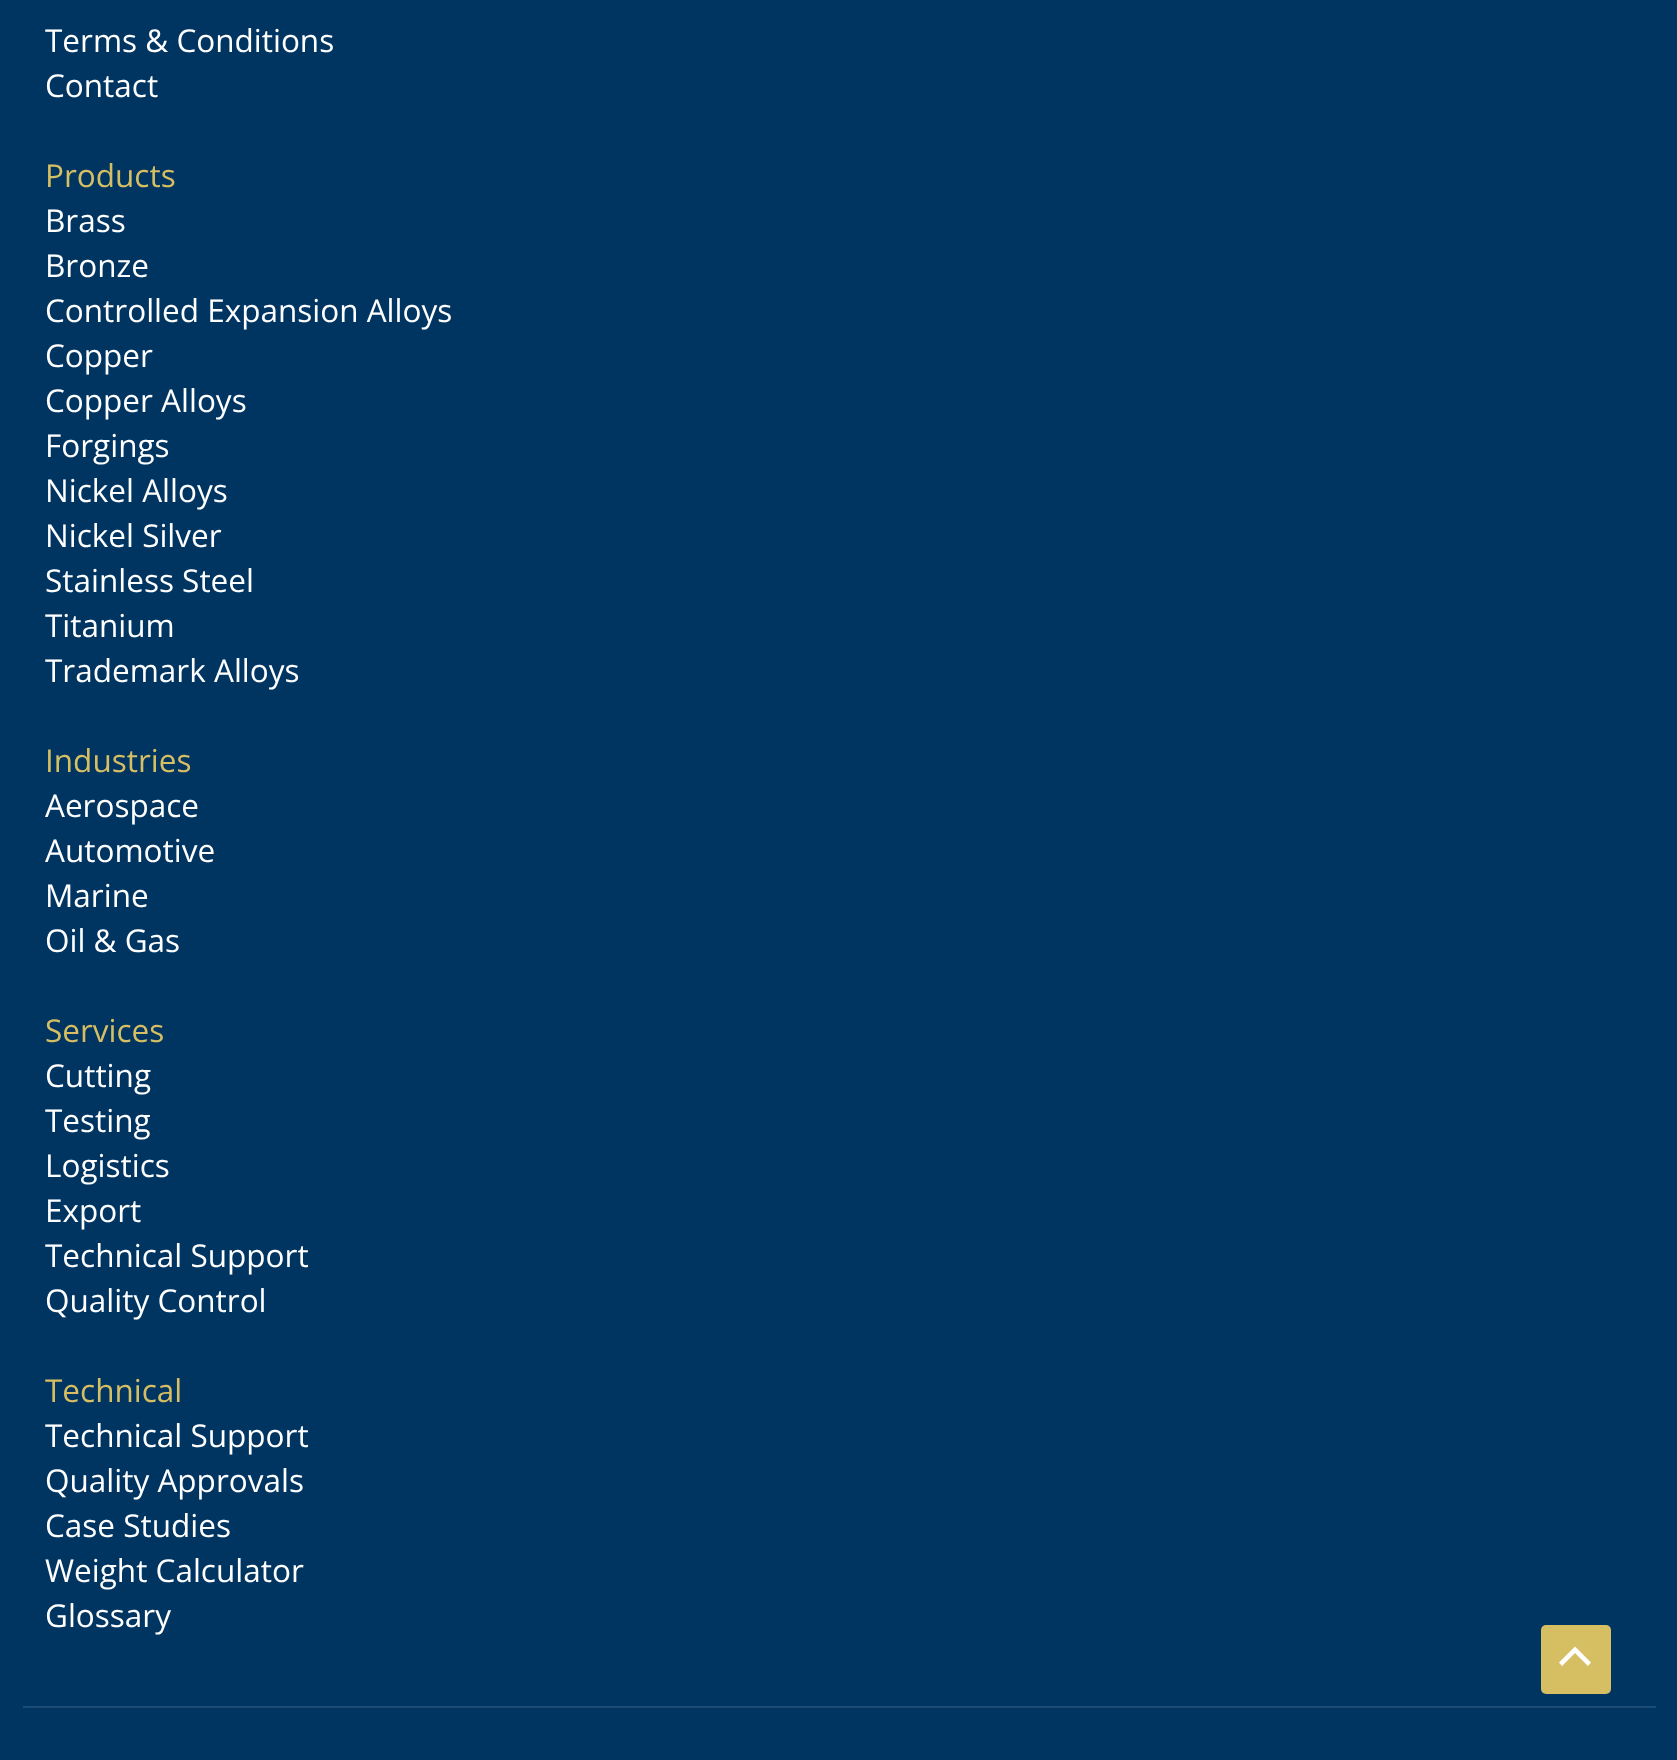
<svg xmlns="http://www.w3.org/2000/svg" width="1677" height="1760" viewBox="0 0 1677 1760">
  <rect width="100%" height="100%" fill="#003562"/>
  <text x="45" y="52" font-family="Open Sans" font-size="31.5" fill="#ffffff">Terms &amp; Conditions</text>
  <text x="45" y="97" font-family="Open Sans" font-size="31.5" fill="#ffffff">Contact</text>
  <text x="45" y="187" font-family="Open Sans" font-size="31.5" fill="#d6be63">Products</text>
  <text x="45" y="232" font-family="Open Sans" font-size="31.5" fill="#ffffff">Brass</text>
  <text x="45" y="277" font-family="Open Sans" font-size="31.5" fill="#ffffff">Bronze</text>
  <text x="45" y="322" font-family="Open Sans" font-size="31.5" fill="#ffffff">Controlled Expansion Alloys</text>
  <text x="45" y="367" font-family="Open Sans" font-size="31.5" fill="#ffffff">Copper</text>
  <text x="45" y="412" font-family="Open Sans" font-size="31.5" fill="#ffffff">Copper Alloys</text>
  <text x="45" y="457" font-family="Open Sans" font-size="31.5" fill="#ffffff">Forgings</text>
  <text x="45" y="502" font-family="Open Sans" font-size="31.5" fill="#ffffff">Nickel Alloys</text>
  <text x="45" y="547" font-family="Open Sans" font-size="31.5" fill="#ffffff">Nickel Silver</text>
  <text x="45" y="592" font-family="Open Sans" font-size="31.5" fill="#ffffff">Stainless Steel</text>
  <text x="45" y="637" font-family="Open Sans" font-size="31.5" fill="#ffffff">Titanium</text>
  <text x="45" y="682" font-family="Open Sans" font-size="31.5" fill="#ffffff">Trademark Alloys</text>
  <text x="45" y="772" font-family="Open Sans" font-size="31.5" fill="#d6be63">Industries</text>
  <text x="45" y="817" font-family="Open Sans" font-size="31.5" fill="#ffffff">Aerospace</text>
  <text x="45" y="862" font-family="Open Sans" font-size="31.5" fill="#ffffff">Automotive</text>
  <text x="45" y="907" font-family="Open Sans" font-size="31.5" fill="#ffffff">Marine</text>
  <text x="45" y="952" font-family="Open Sans" font-size="31.5" fill="#ffffff">Oil &amp; Gas</text>
  <text x="45" y="1042" font-family="Open Sans" font-size="31.5" fill="#d6be63">Services</text>
  <text x="45" y="1087" font-family="Open Sans" font-size="31.5" fill="#ffffff">Cutting</text>
  <text x="45" y="1132" font-family="Open Sans" font-size="31.5" fill="#ffffff">Testing</text>
  <text x="45" y="1177" font-family="Open Sans" font-size="31.5" fill="#ffffff">Logistics</text>
  <text x="45" y="1222" font-family="Open Sans" font-size="31.5" fill="#ffffff">Export</text>
  <text x="45" y="1267" font-family="Open Sans" font-size="31.5" fill="#ffffff">Technical Support</text>
  <text x="45" y="1312" font-family="Open Sans" font-size="31.5" fill="#ffffff">Quality Control</text>
  <text x="45" y="1402" font-family="Open Sans" font-size="31.5" fill="#d6be63">Technical</text>
  <text x="45" y="1447" font-family="Open Sans" font-size="31.5" fill="#ffffff">Technical Support</text>
  <text x="45" y="1492" font-family="Open Sans" font-size="31.5" fill="#ffffff">Quality Approvals</text>
  <text x="45" y="1537" font-family="Open Sans" font-size="31.5" fill="#ffffff">Case Studies</text>
  <text x="45" y="1582" font-family="Open Sans" font-size="31.5" fill="#ffffff">Weight Calculator</text>
  <text x="45" y="1627" font-family="Open Sans" font-size="31.5" fill="#ffffff">Glossary</text>
  <rect x="23" y="1706" width="1633" height="2" fill="#1c4b73"/>
  <rect x="1541" y="1625" width="70" height="69" rx="5" fill="#d6be63"/>
  <path d="M1591 1662.5L1575 1646.5L1559 1662.5L1562 1666L1575 1653L1588 1666Z" fill="#ffffff"/>
</svg>
